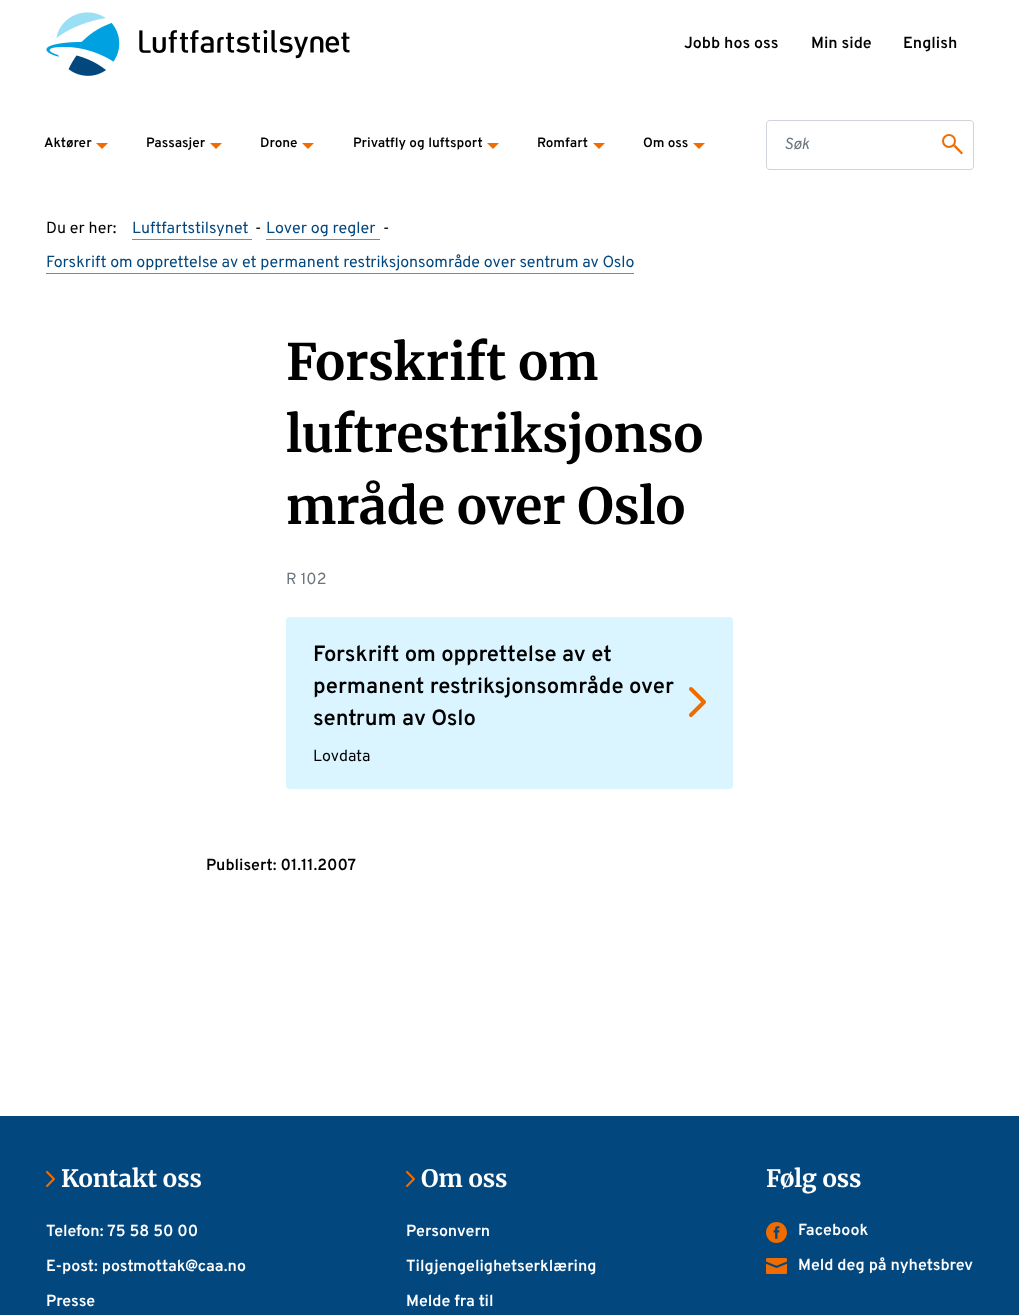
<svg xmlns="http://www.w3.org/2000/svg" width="1019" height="1315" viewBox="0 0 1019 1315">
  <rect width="100%" height="100%" fill="#ffffff"/>
  <image x="46" y="12" width="304" height="64" href="img1.png"/>
  <text x="684" y="48" font-family="Overpass" font-size="16" font-weight="600" fill="#000000">Jobb hos oss</text>
  <text x="811" y="48" font-family="Overpass" font-size="16" font-weight="600" fill="#000000">Min side</text>
  <text x="903" y="48" font-family="Overpass" font-size="16" font-weight="600" fill="#000000">English</text>
  <text x="44" y="147" font-family="Overpass" font-size="13.5" font-weight="600" fill="#000000">Aktører</text>
  <path d="M96 143H108L102 149Z" fill="#f06c00"/>
  <text x="146" y="147" font-family="Overpass" font-size="13.5" font-weight="600" fill="#000000">Passasjer</text>
  <path d="M210 143H222L216 149Z" fill="#f06c00"/>
  <text x="260" y="147" font-family="Overpass" font-size="13.5" font-weight="600" fill="#000000">Drone</text>
  <path d="M302 143H314L308 149Z" fill="#f06c00"/>
  <text x="353" y="147" font-family="Overpass" font-size="13.5" font-weight="600" fill="#000000">Privatfly og luftsport</text>
  <path d="M487 143H499L493 149Z" fill="#f06c00"/>
  <text x="537" y="147" font-family="Overpass" font-size="13.5" font-weight="600" fill="#000000">Romfart</text>
  <path d="M593 143H605L599 149Z" fill="#f06c00"/>
  <text x="643" y="147" font-family="Overpass" font-size="13.5" font-weight="600" fill="#000000">Om oss</text>
  <path d="M693 143H705L699 149Z" fill="#f06c00"/>
  <path d="M770 120H927V170H770C768 170 766 168 766 166V124C766 122 768 120 770 120ZM770 121H927V169H770C768 169 767 168 767 166V124C767 122 768 121 770 121Z" fill="#ced4da" fill-rule="evenodd"/>
  <text x="784" y="149" font-family="Overpass" font-size="16" font-style="italic" fill="#6c757d">Søk</text>
  <path d="M926 120H970C972 120 974 122 974 124V166C974 168 972 170 970 170H926ZM926 121H970C972 121 973 122 973 124V166C973 168 972 169 970 169H926Z" fill="#ced4da" fill-rule="evenodd"/>
  <circle cx="949" cy="141" r="6" fill="none" stroke="#f06c00" stroke-width="2"/>
  <path d="M955 144.5L963 153L961.5 154.5L953.5 146.5Z" fill="#f06c00"/>
  <text x="46" y="233" font-family="Overpass" font-size="16" fill="#000000">Du er her:</text>
  <text x="132" y="233" font-family="Overpass" font-size="16" fill="#03477f">Luftfartstilsynet</text>
  <rect x="132" y="239" width="120" height="1" fill="#f06c00"/>
  <text x="255" y="233" font-family="Overpass" font-size="16" fill="#000000">-</text>
  <text x="266" y="233" font-family="Overpass" font-size="16" fill="#03477f">Lover og regler</text>
  <rect x="266" y="239" width="114" height="1" fill="#f06c00"/>
  <text x="383" y="233" font-family="Overpass" font-size="16" fill="#000000">-</text>
  <text x="46" y="267" font-family="Overpass" font-size="16" fill="#03477f">Forskrift om opprettelse av et permanent restriksjonsområde over sentrum av Oslo</text>
  <rect x="46" y="273" width="588" height="1" fill="#f06c00"/>
  <text x="286" y="380" font-family="Merriweather" font-size="50" font-weight="bold" fill="#000000">Forskrift om</text>
  <text x="286" y="452" font-family="Merriweather" font-size="50" font-weight="bold" fill="#000000">luftrestriksjonso</text>
  <text x="286" y="524" font-family="Merriweather" font-size="50" font-weight="bold" fill="#000000">mråde over Oslo</text>
  <text x="286" y="584" font-family="Overpass" font-size="16" fill="#6c757d">R 102</text>
  <rect x="287.5" y="618.5" width="444" height="169" rx="2.5" fill="#daf5ff" stroke="#daf5ff" stroke-width="3"/>
  <text x="313" y="661" font-family="Overpass" font-size="22" font-weight="600" fill="#000000">Forskrift om opprettelse av et</text>
  <text x="313" y="693" font-family="Overpass" font-size="22" font-weight="600" fill="#000000">permanent restriksjonsområde over</text>
  <text x="313" y="725" font-family="Overpass" font-size="22" font-weight="600" fill="#000000">sentrum av Oslo</text>
  <text x="313" y="761" font-family="Overpass" font-size="16" fill="#000000">Lovdata</text>
  <image x="689" y="687" width="17" height="30" href="img2.png"/>
  <text x="206" y="870" font-family="Overpass" font-size="16" font-weight="600" fill="#000000">Publisert: 01.11.2007</text>
  <rect x="0" y="1116" width="1019" height="199" fill="#03477f"/>
  <image x="46" y="1171" width="9" height="16" href="img3.png"/>
  <text x="61" y="1187" font-family="Merriweather" font-size="24" font-weight="bold" fill="#ffffff">Kontakt oss</text>
  <text x="46" y="1236" font-family="Overpass" font-size="16" font-weight="600" fill="#ffffff">Telefon: 75 58 50 00</text>
  <text x="46" y="1271" font-family="Overpass" font-size="16" font-weight="600" fill="#ffffff">E-post: postmottak@caa.no</text>
  <text x="46" y="1306" font-family="Overpass" font-size="16" font-weight="600" fill="#ffffff">Presse</text>
  <image x="406" y="1171" width="9" height="16" href="img3.png"/>
  <text x="421" y="1187" font-family="Merriweather" font-size="24" font-weight="bold" fill="#ffffff">Om oss</text>
  <text x="406" y="1236" font-family="Overpass" font-size="16" font-weight="600" fill="#ffffff">Personvern</text>
  <text x="406" y="1271" font-family="Overpass" font-size="16" font-weight="600" fill="#ffffff">Tilgjengelighetserklæring</text>
  <text x="406" y="1306" font-family="Overpass" font-size="16" font-weight="600" fill="#ffffff">Melde fra til</text>
  <text x="766" y="1187" font-family="Merriweather" font-size="24" font-weight="bold" fill="#ffffff">Følg oss</text>
  <image x="766" y="1222" width="21" height="21" href="img4.png"/>
  <text x="798" y="1235" font-family="Overpass" font-size="16" font-weight="600" fill="#ffffff">Facebook</text>
  <image x="766" y="1258" width="21" height="16" href="img5.png"/>
  <text x="798" y="1270" font-family="Overpass" font-size="16" font-weight="600" fill="#ffffff">Meld deg på nyhetsbrev</text>
</svg>
